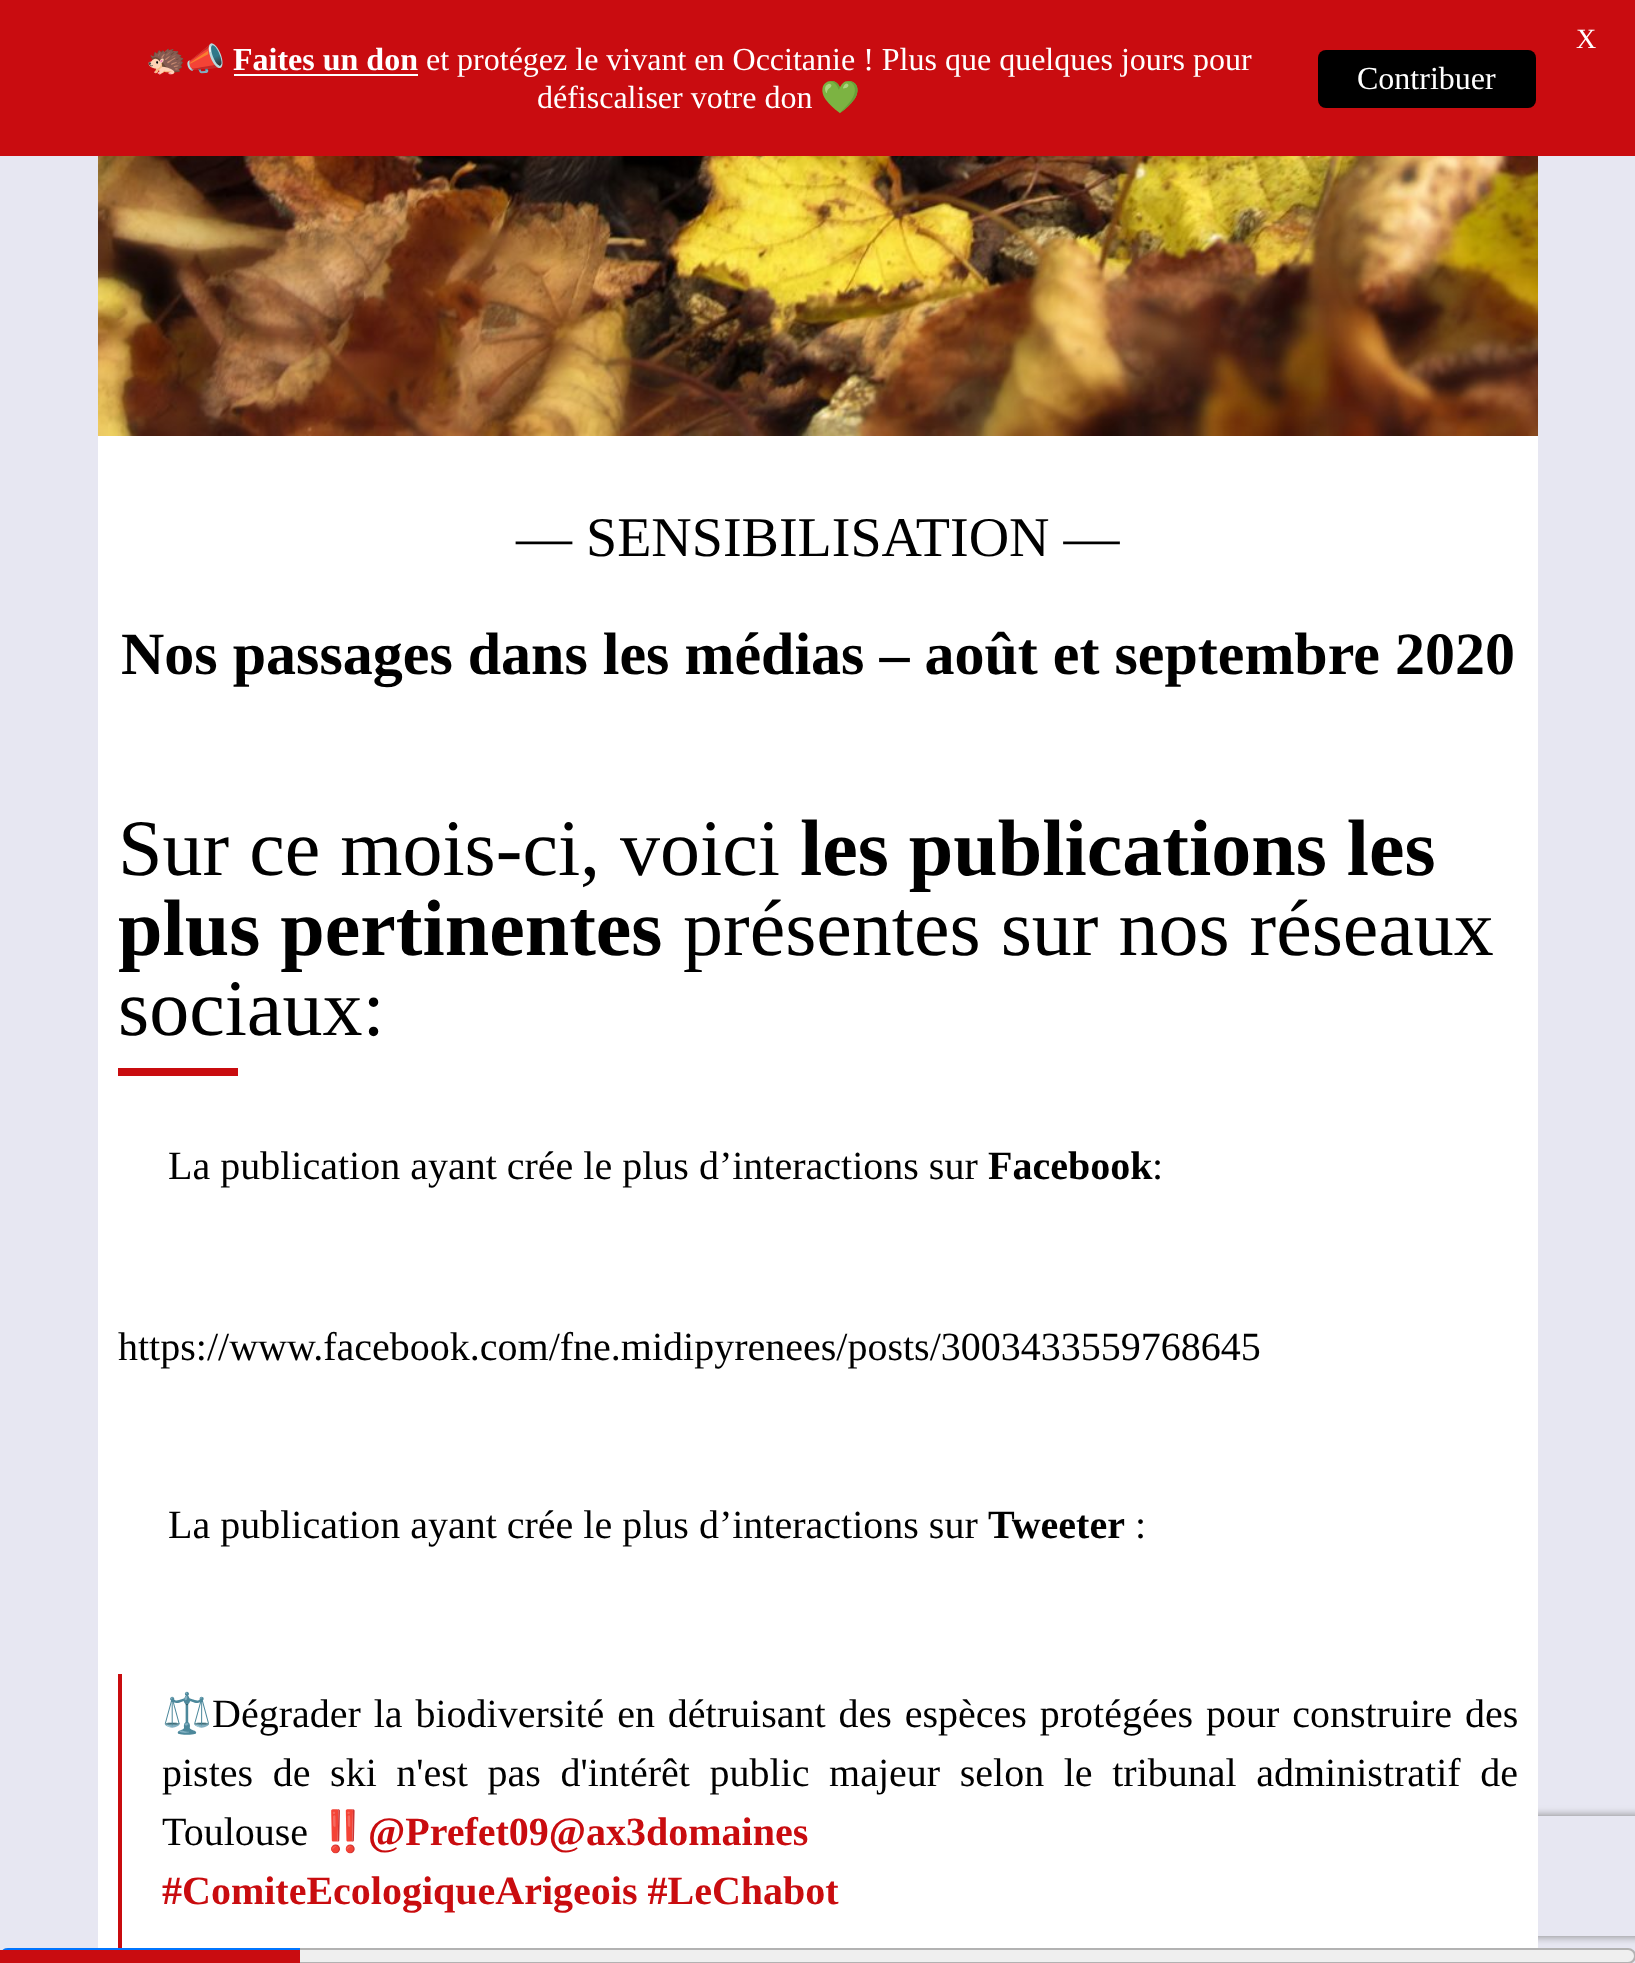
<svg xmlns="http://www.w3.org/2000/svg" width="1635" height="1963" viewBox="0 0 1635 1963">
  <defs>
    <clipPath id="clip1"><path d="M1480 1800H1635V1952H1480ZM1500 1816H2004C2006 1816 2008 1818 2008 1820V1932C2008 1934 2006 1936 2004 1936H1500C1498 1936 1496 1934 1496 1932V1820C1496 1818 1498 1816 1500 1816Z" clip-rule="evenodd"/></clipPath>
    <filter id="blur1" x="-50%" y="-200%" width="200%" height="500%"><feGaussianBlur stdDeviation="5"/></filter>
  </defs>
  <rect width="100%" height="100%" fill="#e7e7f2"/>
  <rect x="0" y="0" width="1635" height="156" fill="#c90c10"/>
  <text x="1576" y="48" font-family="Liberation Serif" font-size="28" fill="#ffffff">X</text>
  <text x="146" y="70" font-family="Noto Color Emoji" font-size="32" fill="#ffffff">🦔📣</text>
  <text x="233" y="70" font-family="Liberation Serif" font-size="32" font-weight="bold" fill="#ffffff">Faites un don</text>
  <rect x="234" y="74" width="184" height="2" fill="#ffffff"/>
  <text x="426" y="70" font-family="Liberation Serif" font-size="32" fill="#ffffff">et protégez le vivant en Occitanie ! Plus que quelques jours pour</text>
  <text x="537" y="108" font-family="Liberation Serif" font-size="32" fill="#ffffff">défiscaliser votre don</text>
  <text x="820" y="108" font-family="Noto Color Emoji" font-size="32" fill="#ffffff">💚</text>
  <rect x="1318" y="50" width="218" height="58" rx="8" fill="#000000"/>
  <text x="1357" y="89" font-family="Liberation Serif" font-size="32" fill="#ffffff">Contribuer</text>
  <g clip-path="url(#clip1)">
    <rect x="1496" y="1816" width="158" height="120" rx="4" fill="#808080" filter="url(#blur1)"/>
  </g>
  <rect x="98" y="436" width="1440" height="1512" fill="#ffffff"/>
  <image x="98" y="156" width="1440" height="280" href="img1.png"/>
  <text x="516" y="556" font-family="Liberation Serif" font-size="56" fill="#000000">— SENSIBILISATION —</text>
  <text x="121" y="674" font-family="Liberation Serif" font-size="60" font-weight="bold" fill="#000000">Nos passages dans les médias – août et septembre 2020</text>
  <text x="118" y="875" font-family="Liberation Serif" font-size="80" fill="#000000">Sur ce mois-ci, voici</text>
  <text x="800" y="875" font-family="Liberation Serif" font-size="80" font-weight="bold" fill="#000000">les publications les</text>
  <text x="118" y="955" font-family="Liberation Serif" font-size="80" font-weight="bold" fill="#000000">plus pertinentes</text>
  <text x="683" y="955" font-family="Liberation Serif" font-size="80" fill="#000000">présentes sur nos réseaux</text>
  <text x="118" y="1035" font-family="Liberation Serif" font-size="80" fill="#000000">sociaux:</text>
  <rect x="118" y="1068" width="120" height="8" fill="#c90c0f"/>
  <text x="168" y="1179" font-family="Liberation Serif" font-size="40" fill="#000000">La publication ayant crée le plus d’interactions sur</text>
  <text x="988" y="1179" font-family="Liberation Serif" font-size="40" font-weight="bold" fill="#000000">Facebook</text>
  <text x="1152" y="1179" font-family="Liberation Serif" font-size="40" fill="#000000">:</text>
  <text x="118" y="1360" font-family="Liberation Serif" font-size="40" fill="#000000">https://www.facebook.com/fne.midipyrenees/posts/3003433559768645</text>
  <text x="168" y="1538" font-family="Liberation Serif" font-size="40" fill="#000000">La publication ayant crée le plus d’interactions sur</text>
  <text x="988" y="1538" font-family="Liberation Serif" font-size="40" font-weight="bold" fill="#000000">Tweeter</text>
  <text x="1135" y="1538" font-family="Liberation Serif" font-size="40" fill="#000000">:</text>
  <rect x="118" y="1674" width="4" height="274" fill="#c90c0f"/>
  <text x="162" y="1727" font-family="Noto Color Emoji" font-size="40" fill="#000000">⚖️</text>
  <text x="212" y="1727" word-spacing="2.9" font-family="Liberation Serif" font-size="40" fill="#000000">Dégrader la biodiversité en détruisant des espèces protégées pour construire des</text>
  <text x="162" y="1786" word-spacing="9.6" font-family="Liberation Serif" font-size="40" fill="#000000">pistes de ski n'est pas d'intérêt public majeur selon le tribunal administratif de</text>
  <text x="162" y="1845" font-family="Liberation Serif" font-size="40" fill="#000000">Toulouse</text>
  <text x="318" y="1845" font-family="Noto Color Emoji" font-size="40" fill="#000000">‼️</text>
  <text x="368" y="1845" font-family="Liberation Serif" font-size="40" font-weight="bold" fill="#c90c0f">@Prefet09@ax3domaines</text>
  <text x="162" y="1904" font-family="Liberation Serif" font-size="40" font-weight="bold" fill="#c90c0f">#ComiteEcologiqueArigeois #LeChabot</text>
  <rect x="1" y="1949" width="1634" height="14" rx="7" fill="#efefef" stroke="#b2b2b2" stroke-width="2"/>
  <path d="M8 1948H300V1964H8C3.5 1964 0 1960.5 0 1956C0 1951.5 3.5 1948 8 1948Z" fill="#0075ff"/>
  <rect x="0" y="1950" width="300" height="13" fill="#c90c10"/>
</svg>
